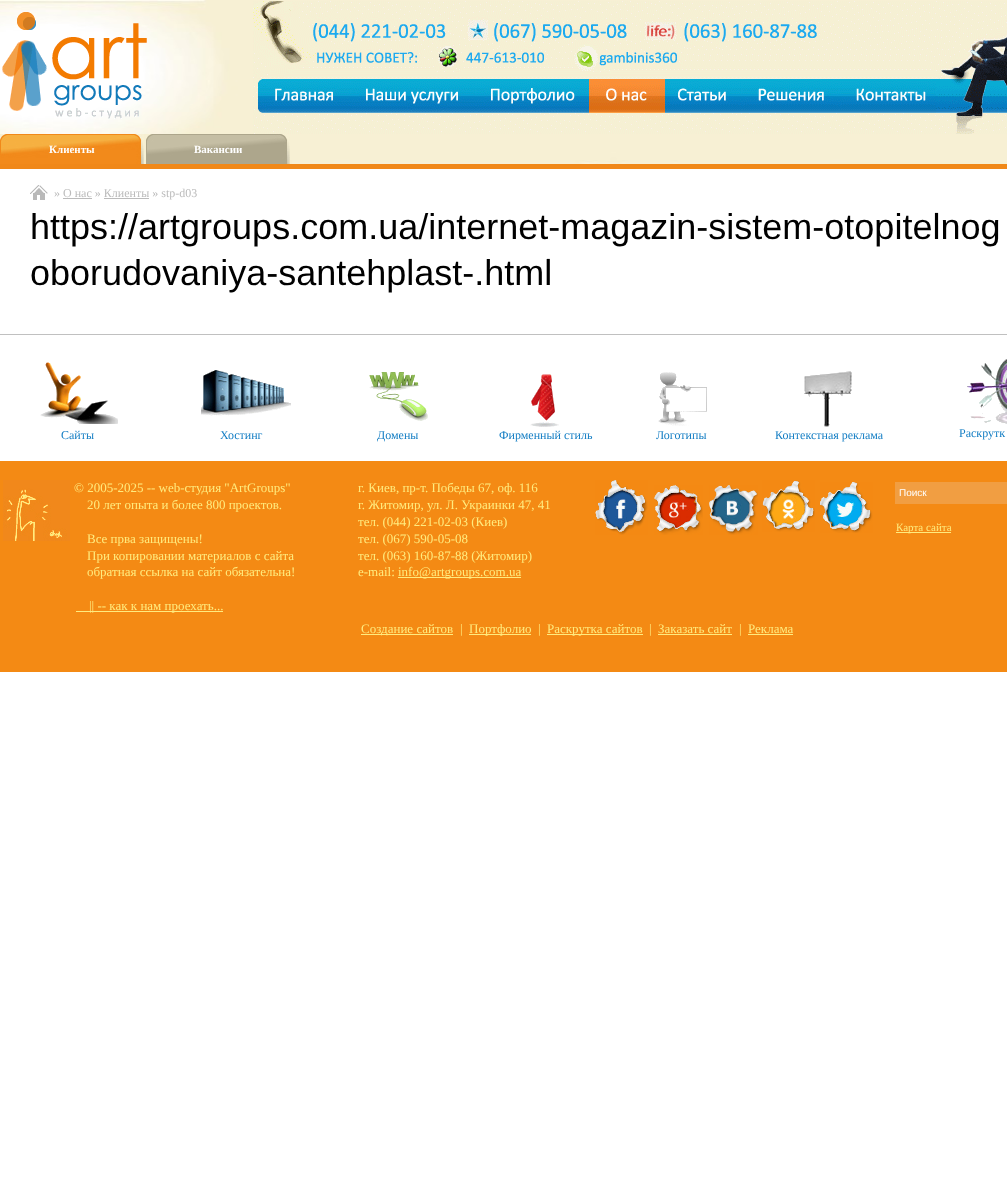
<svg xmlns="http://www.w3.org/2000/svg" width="1007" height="1196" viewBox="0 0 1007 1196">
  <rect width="100%" height="100%" fill="#ffffff"/>
  <image x="0" y="0" width="1007" height="164" href="img1.png"/>
  <image x="1" y="12" width="146" height="107" href="img2.png"/>
  <image x="253" y="1" width="754" height="133" href="img3.png"/>
  <image x="258" y="79" width="93" height="34" href="img4.png"/>
  <image x="351" y="80" width="125" height="33" href="img5.png"/>
  <image x="476" y="80" width="113" height="33" href="img6.png"/>
  <image x="589" y="79" width="76" height="34" href="img7.png"/>
  <image x="665" y="80" width="77" height="33" href="img8.png"/>
  <image x="742" y="79" width="97" height="34" href="img9.png"/>
  <image x="839" y="80" width="97" height="33" href="img10.png"/>
  <image x="0" y="134" width="144" height="30" href="img11.png"/>
  <rect x="144" y="134" width="2" height="18" fill="#f6efd2"/>
  <text x="49" y="153" font-family="Liberation Serif" font-size="11" font-weight="bold" fill="#ffffff">Клиенты</text>
  <image x="146" y="134" width="144" height="30" href="img12.png"/>
  <rect x="290" y="160" width="2" height="4" fill="#f6efd2"/>
  <text x="194" y="153" font-family="Liberation Serif" font-size="11" font-weight="bold" fill="#ffffff">Вакансии</text>
  <rect x="0" y="164" width="1007" height="5" fill="#f08819"/>
  <image x="30" y="185" width="18" height="15" href="img13.png"/>
  <text x="54" y="197" font-family="Liberation Serif" font-size="12" fill="#bbbbbb">» О нас » Клиенты » stp-d03</text>
  <rect x="63" y="198" width="29" height="1" fill="#bbbbbb"/>
  <rect x="104" y="198" width="45" height="1" fill="#bbbbbb"/>
  <text x="30" y="239" font-family="Liberation Sans" font-size="36" fill="#000000">https://artgroups.com.ua/internet-magazin-sistem-otopitelnog</text>
  <text x="30" y="285" font-family="Liberation Sans" font-size="36" fill="#000000">oborudovaniya-santehplast-.html</text>
  <rect x="0" y="334" width="1007" height="1" fill="#c0c0c0"/>
  <image x="40" y="362" width="78" height="62" href="img14.png"/>
  <text x="61" y="439" font-family="Liberation Serif" font-size="12" fill="#147ec4">Сайты</text>
  <image x="201" y="370" width="90" height="46" href="img15.png"/>
  <text x="220" y="439" font-family="Liberation Serif" font-size="12" fill="#147ec4">Хостинг</text>
  <image x="369" y="372" width="59" height="49" href="img16.png"/>
  <text x="377" y="439" font-family="Liberation Serif" font-size="12" fill="#147ec4">Домены</text>
  <image x="530" y="374" width="29" height="53" href="img17.png"/>
  <text x="499" y="439" font-family="Liberation Serif" font-size="12" fill="#147ec4">Фирменный стиль</text>
  <image x="658" y="372" width="49" height="54" href="img18.png"/>
  <text x="656" y="439" font-family="Liberation Serif" font-size="12" fill="#147ec4">Логотипы</text>
  <image x="804" y="371" width="48" height="56" href="img19.png"/>
  <text x="775" y="439" font-family="Liberation Serif" font-size="12" fill="#147ec4">Контекстная реклама</text>
  <image x="967" y="359" width="40" height="65" href="img20.png"/>
  <text x="959" y="437" font-family="Liberation Serif" font-size="12" fill="#147ec4">Раскрутк</text>
  <rect x="0" y="461" width="1007" height="211" fill="#f48a14"/>
  <image x="3" y="480" width="67" height="61" href="img21.png"/>
  <text x="74" y="492" font-family="Liberation Serif" font-size="13" fill="#ffeb7e">© 2005-2025 -- web-студия "ArtGroups"</text>
  <text x="87" y="509" font-family="Liberation Serif" font-size="13" fill="#ffeb7e">20 лет опыта и более 800 проектов.</text>
  <text x="87" y="543" font-family="Liberation Serif" font-size="13" fill="#ffeb7e">Все прва защищены!</text>
  <text x="87" y="560" font-family="Liberation Serif" font-size="13" fill="#ffeb7e">При копировании материалов с сайта</text>
  <text x="87" y="576" font-family="Liberation Serif" font-size="13" fill="#ffeb7e">обратная ссылка на сайт обязательна!</text>
  <rect x="76" y="611" width="147" height="1" fill="#ffeb7e"/>
  <text x="89" y="610" font-family="Liberation Serif" font-size="13" fill="#ffeb7e">|| -- как к нам проехать...</text>
  <text x="358" y="492" font-family="Liberation Serif" font-size="13" fill="#ffeb7e">г. Киев, пр-т. Победы 67, оф. 116</text>
  <text x="358" y="509" font-family="Liberation Serif" font-size="13" fill="#ffeb7e">г. Житомир, ул. Л. Украинки 47, 41</text>
  <text x="358" y="526" font-family="Liberation Serif" font-size="13" fill="#ffeb7e">тел. (044) 221-02-03 (Киев)</text>
  <text x="358" y="543" font-family="Liberation Serif" font-size="13" fill="#ffeb7e">тел. (067) 590-05-08</text>
  <text x="358" y="560" font-family="Liberation Serif" font-size="13" fill="#ffeb7e">тел. (063) 160-87-88 (Житомир)</text>
  <text x="358" y="576" font-family="Liberation Serif" font-size="13" fill="#ffeb7e">e-mail:</text>
  <rect x="398" y="577" width="123" height="1" fill="#ffeb7e"/>
  <text x="398" y="576" font-family="Liberation Serif" font-size="13" fill="#ffeb7e">info@artgroups.com.ua</text>
  <image x="595" y="480" width="53" height="55" href="img22.png"/>
  <image x="654" y="485" width="49" height="50" href="img23.png"/>
  <image x="709" y="485" width="49" height="50" href="img24.png"/>
  <image x="762" y="480" width="53" height="52" href="img25.png"/>
  <image x="820" y="482" width="53" height="51" href="img26.png"/>
  <rect x="895" y="482" width="112" height="22" fill="#f19e42"/>
  <text x="899" y="496" font-family="Liberation Sans" font-size="10" fill="#ffffff">Поиск</text>
  <rect x="896" y="532" width="55" height="1" fill="#ffeb7e"/>
  <text x="896" y="531" font-family="Liberation Serif" font-size="11" fill="#ffeb7e">Карта сайта</text>
  <rect x="361" y="634" width="92" height="1" fill="#ffeb7e"/>
  <text x="361" y="633" font-family="Liberation Serif" font-size="13" fill="#ffeb7e">Создание сайтов</text>
  <text x="460" y="633" font-family="Liberation Serif" font-size="13" fill="#ffeb7e">|</text>
  <rect x="469" y="634" width="62" height="1" fill="#ffeb7e"/>
  <text x="469" y="633" font-family="Liberation Serif" font-size="13" fill="#ffeb7e">Портфолио</text>
  <text x="538" y="633" font-family="Liberation Serif" font-size="13" fill="#ffeb7e">|</text>
  <rect x="547" y="634" width="96" height="1" fill="#ffeb7e"/>
  <text x="547" y="633" font-family="Liberation Serif" font-size="13" fill="#ffeb7e">Раскрутка сайтов</text>
  <text x="649" y="633" font-family="Liberation Serif" font-size="13" fill="#ffeb7e">|</text>
  <text x="658" y="633" font-family="Liberation Serif" font-size="13" fill="#ffeb7e">Заказать сайт</text>
  <rect x="658" y="634" width="74" height="1" fill="#ffeb7e"/>
  <text x="739" y="633" font-family="Liberation Serif" font-size="13" fill="#ffeb7e">|</text>
  <text x="748" y="633" font-family="Liberation Serif" font-size="13" fill="#ffeb7e">Реклама</text>
  <rect x="748" y="634" width="45" height="1" fill="#ffeb7e"/>
</svg>
